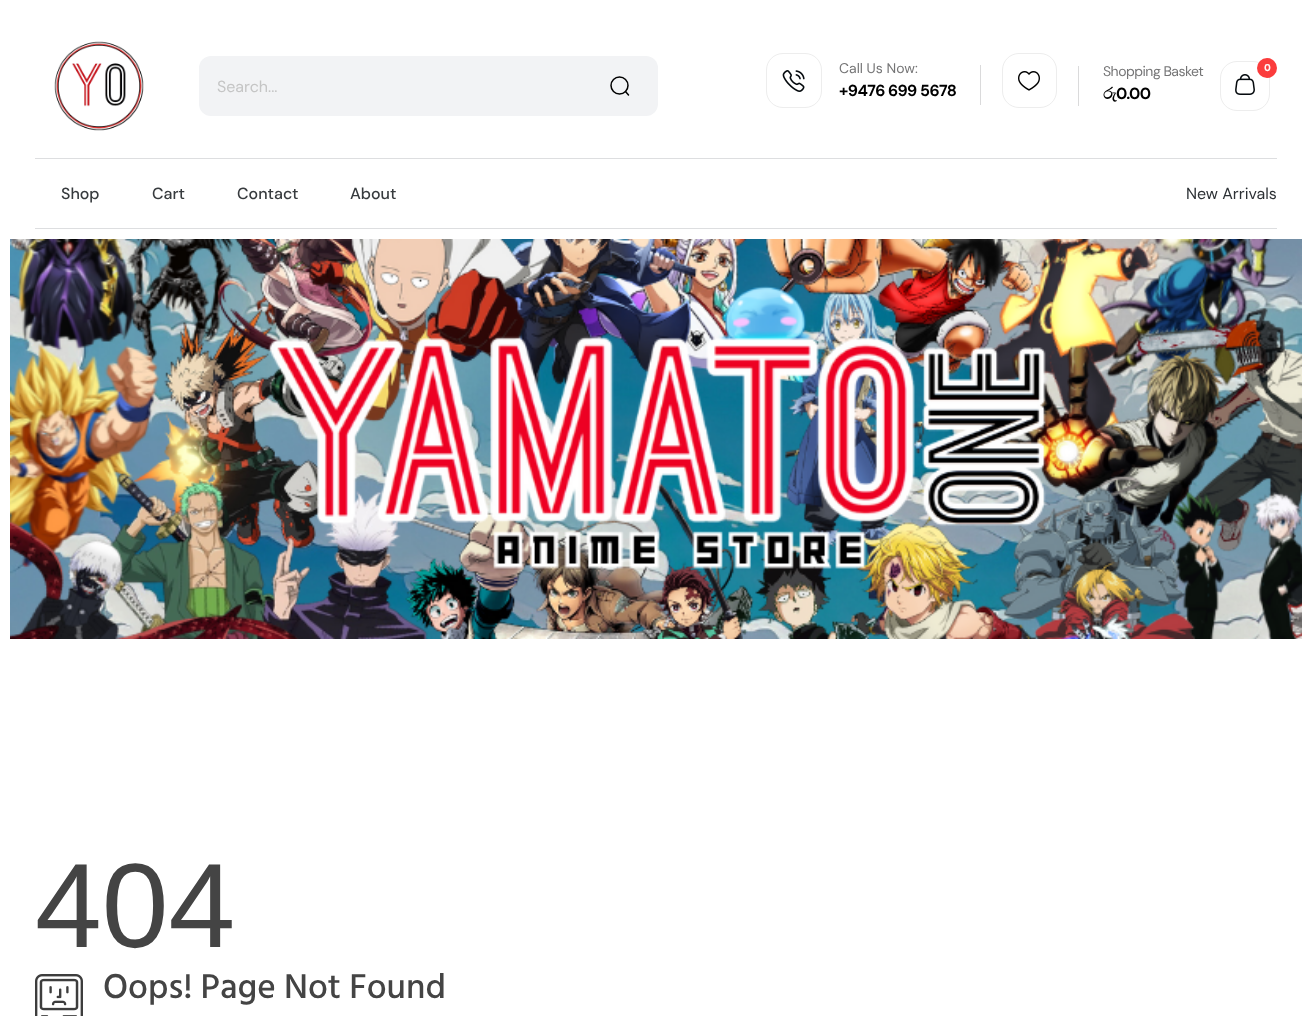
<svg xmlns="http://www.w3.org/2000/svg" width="1312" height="1016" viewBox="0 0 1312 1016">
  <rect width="100%" height="100%" fill="#ffffff"/>
  <image x="54" y="41" width="90" height="90" href="img1.png"/>
  <rect x="199" y="56" width="459" height="60" rx="12" fill="#f2f3f5"/>
  <text x="217" y="92" font-family="DM Sans" font-size="16" fill="#c5c5c5">Search...</text>
  <circle cx="619.5" cy="85.5" r="8.5" fill="none" stroke="#000000" stroke-width="1.5"/>
  <path d="M625.5 91.5L628.5 95" fill="none" stroke="#000000" stroke-width="1.5" stroke-linecap="round" stroke-linejoin="round"/>
  <rect x="766.5" y="53.5" width="55" height="54" rx="16.5" fill="none" stroke="#ededed"/>
  <image x="782" y="70" width="23" height="22" href="img2.png"/>
  <text x="839" y="73" font-family="'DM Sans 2'" font-size="14" fill="#757576">Call Us Now:</text>
  <text x="839" y="96" font-family="DM Sans" font-size="16" font-weight="bold" letter-spacing="-0.5" fill="#000000">+9476 699 5678</text>
  <rect x="980" y="65" width="1" height="40" fill="#dadadb"/>
  <rect x="1002.5" y="53.5" width="54" height="54" rx="16.5" fill="none" stroke="#ededed"/>
  <image x="1018" y="71" width="22" height="20" href="img3.png"/>
  <image x="1235" y="74" width="20" height="21" href="img4.png"/>
  <rect x="1078" y="66" width="1" height="40" fill="#dadadb"/>
  <text x="1103" y="76" font-family="'DM Sans 2'" font-size="14" letter-spacing="-0.5" fill="#757576">Shopping Basket</text>
  <text x="1103" y="99" font-family="FreeSerif" font-size="16" font-weight="bold" letter-spacing="-0.5" fill="#000000">රු</text>
  <text x="1116" y="99" font-family="DM Sans" font-size="16" font-weight="bold" letter-spacing="-0.5" fill="#000000">0.00</text>
  <rect x="1220.5" y="61.5" width="49" height="49" rx="16.5" fill="none" stroke="#ededed"/>
  <circle cx="1267" cy="68" r="10" fill="#fb3c3c"/>
  <text x="1264" y="71" font-family="DM Sans" font-size="10" font-weight="900" fill="#fff6f6">0</text>
  <rect x="35" y="158" width="1242" height="1" fill="#dddee0"/>
  <rect x="35" y="228" width="1242" height="1" fill="#dddee0"/>
  <text x="61" y="199" font-family="DM Sans" font-size="16" font-weight="500" fill="#373b3e">Shop</text>
  <text x="152" y="199" font-family="DM Sans" font-size="16" font-weight="500" fill="#373b3e">Cart</text>
  <text x="237" y="199" font-family="DM Sans" font-size="16" font-weight="500" fill="#373b3e">Contact</text>
  <text x="350" y="199" font-family="DM Sans" font-size="16" font-weight="500" fill="#373b3e">About</text>
  <text x="1186" y="199" font-family="'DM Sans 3'" font-size="16" fill="#2d3135">New Arrivals</text>
  <image x="10" y="239" width="1292" height="400" href="img5.png"/>
  <text x="35" y="947" font-family="Liberation Sans" font-size="120" fill="#444444">404</text>
  <image x="35" y="974" width="48" height="42" href="img6.png"/>
  <text x="103" y="998" font-family="Hind Siliguri" font-size="35.25" font-weight="500" fill="#444444">Oops! Page Not Found</text>
</svg>
